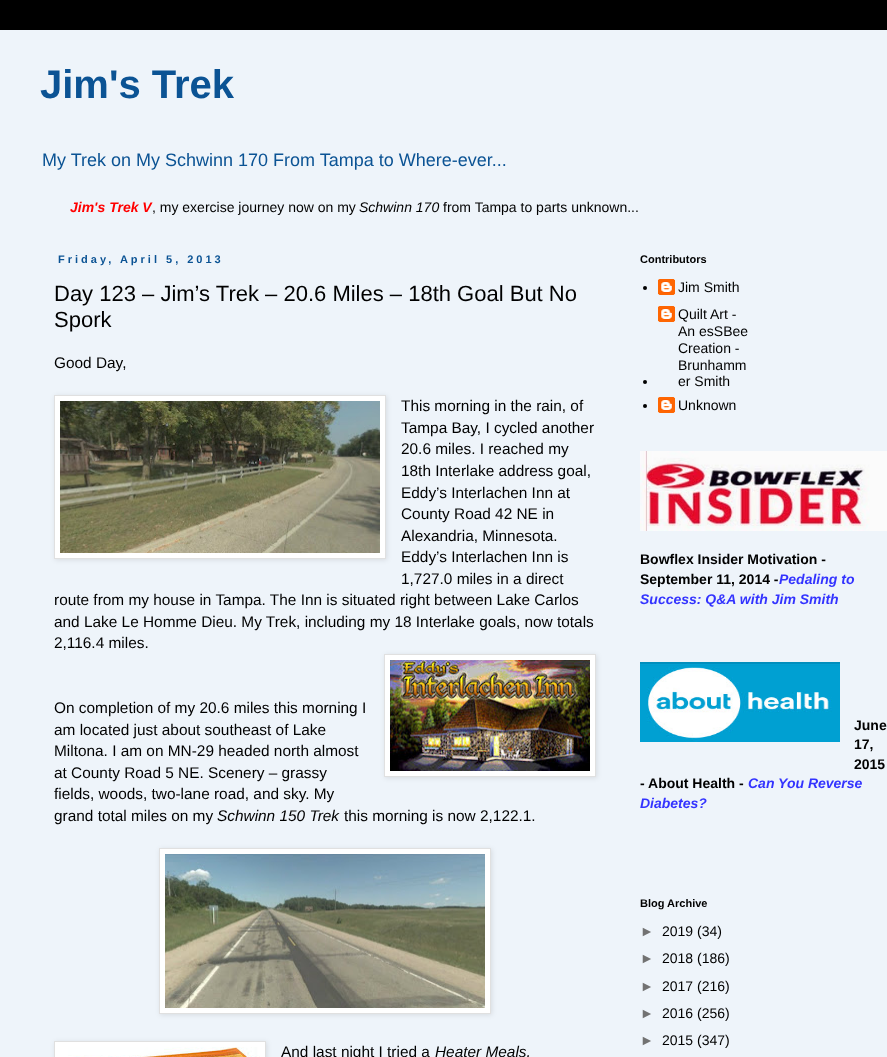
<svg xmlns="http://www.w3.org/2000/svg" width="887" height="1057" viewBox="0 0 887 1057">
  <defs>
    <filter id="blur1" x="-50%" y="-200%" width="200%" height="500%"><feGaussianBlur stdDeviation="2.5"/></filter>
  </defs>
  <rect width="100%" height="100%" fill="#000000"/>
  <rect x="0" y="30" width="887" height="1027" fill="#eef4fa"/>
  <text x="40" y="98" font-family="Liberation Sans" font-size="40" font-weight="bold" fill="#0b5394">Jim's Trek</text>
  <text x="42" y="166" font-family="Liberation Sans" font-size="18" fill="#0b5394">My Trek on My Schwinn 170 From Tampa to Where-ever...</text>
  <text x="70" y="212" font-family="Liberation Sans" font-size="14" font-weight="bold" font-style="italic" fill="#ff0000">Jim's Trek V</text>
  <text x="152" y="212" font-family="Liberation Sans" font-size="14" fill="#000000">, my exercise journey now on my</text>
  <text x="359" y="212" font-family="Liberation Sans" font-size="14" font-style="italic" fill="#000000">Schwinn 170</text>
  <text x="443" y="212" font-family="Liberation Sans" font-size="14" fill="#000000">from Tampa to parts unknown...</text>
  <text x="58" y="263" font-family="Liberation Sans" font-size="11" font-weight="bold" letter-spacing="3" fill="#0b5394">Friday, April 5, 2013</text>
  <text x="54" y="301" font-family="Liberation Sans" font-size="22" fill="#000000">Day 123 – Jim’s Trek – 20.6 Miles – 18th Goal But No</text>
  <text x="54" y="327" font-family="Liberation Sans" font-size="22" fill="#000000">Spork</text>
  <text x="54" y="368" font-family="Liberation Sans" font-size="15.4" fill="#000000">Good Day,</text>
  <rect x="55" y="396" width="332" height="164" fill="#000000" fill-opacity="0.1" filter="url(#blur1)"/>
  <rect x="54.5" y="395.5" width="331" height="163" fill="#ffffff" stroke="#e0e0e0"/>
  <image x="60" y="401" width="320" height="152" href="img1.png"/>
  <text x="401" y="411" font-family="Liberation Sans" font-size="15.4" fill="#000000">This morning in the rain, of</text>
  <text x="401" y="433" font-family="Liberation Sans" font-size="15.4" fill="#000000">Tampa Bay, I cycled another</text>
  <text x="401" y="454" font-family="Liberation Sans" font-size="15.4" fill="#000000">20.6 miles. I reached my</text>
  <text x="401" y="476" font-family="Liberation Sans" font-size="15.4" fill="#000000">18th Interlake address goal,</text>
  <text x="401" y="498" font-family="Liberation Sans" font-size="15.4" fill="#000000">Eddy’s Interlachen Inn at</text>
  <text x="401" y="519" font-family="Liberation Sans" font-size="15.4" fill="#000000">County Road 42 NE in</text>
  <text x="401" y="541" font-family="Liberation Sans" font-size="15.4" fill="#000000">Alexandria, Minnesota.</text>
  <text x="401" y="562" font-family="Liberation Sans" font-size="15.4" fill="#000000">Eddy’s Interlachen Inn is</text>
  <text x="401" y="584" font-family="Liberation Sans" font-size="15.4" fill="#000000">1,727.0 miles in a direct</text>
  <text x="54" y="605" font-family="Liberation Sans" font-size="15.4" fill="#000000">route from my house in Tampa. The Inn is situated right between Lake Carlos</text>
  <text x="54" y="627" font-family="Liberation Sans" font-size="15.4" fill="#000000">and Lake Le Homme Dieu. My Trek, including my 18 Interlake goals, now totals</text>
  <text x="54" y="648" font-family="Liberation Sans" font-size="15.4" fill="#000000">2,116.4 miles.</text>
  <text x="54" y="713" font-family="Liberation Sans" font-size="15.4" fill="#000000">On completion of my 20.6 miles this morning I</text>
  <rect x="385" y="655" width="212" height="123" fill="#000000" fill-opacity="0.1" filter="url(#blur1)"/>
  <rect x="384.5" y="654.5" width="211" height="122" fill="#ffffff" stroke="#e0e0e0"/>
  <image x="390" y="660" width="200" height="111" href="img2.png"/>
  <text x="54" y="735" font-family="Liberation Sans" font-size="15.4" fill="#000000">am located just about southeast of Lake</text>
  <text x="54" y="756" font-family="Liberation Sans" font-size="15.4" fill="#000000">Miltona. I am on MN-29 headed north almost</text>
  <text x="54" y="778" font-family="Liberation Sans" font-size="15.4" fill="#000000">at County Road 5 NE. Scenery – grassy</text>
  <text x="54" y="799" font-family="Liberation Sans" font-size="15.4" fill="#000000">fields, woods, two-lane road, and sky. My</text>
  <text x="54" y="821" font-family="Liberation Sans" font-size="15.4" fill="#000000">grand total miles on my</text>
  <text x="217" y="821" font-family="Liberation Sans" font-size="15.4" font-style="italic" fill="#000000">Schwinn 150 Trek</text>
  <text x="344" y="821" font-family="Liberation Sans" font-size="15.4" fill="#000000">this morning is now 2,122.1.</text>
  <rect x="160" y="849" width="332" height="166" fill="#000000" fill-opacity="0.1" filter="url(#blur1)"/>
  <rect x="159.5" y="848.5" width="331" height="165" fill="#ffffff" stroke="#e0e0e0"/>
  <image x="165" y="854" width="320" height="154" href="img3.png"/>
  <rect x="55" y="1042" width="212" height="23" fill="#000000" fill-opacity="0.1" filter="url(#blur1)"/>
  <rect x="54.5" y="1041.5" width="211" height="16" fill="#ffffff" stroke="#e0e0e0"/>
  <image x="68" y="1047" width="192" height="10" href="img4.png"/>
  <text x="281" y="1057" font-family="Liberation Sans" font-size="15.4" fill="#000000">And last night I tried a</text>
  <text x="435" y="1057" font-family="Liberation Sans" font-size="15.4" font-style="italic" fill="#000000">Heater Meals,</text>
  <text x="640" y="263" font-family="Liberation Sans" font-size="11" font-weight="bold" fill="#000000">Contributors</text>
  <circle cx="645" cy="288" r="2" fill="#000000"/>
  <image x="658" y="279" width="17" height="16" href="img5.png"/>
  <text x="678" y="292" font-family="Liberation Sans" font-size="14" fill="#000000">Jim Smith</text>
  <circle cx="645" cy="382" r="2" fill="#000000"/>
  <image x="658" y="306" width="17" height="16" href="img5.png"/>
  <text x="678" y="319" font-family="Liberation Sans" font-size="14" fill="#000000">Quilt Art -</text>
  <text x="678" y="336" font-family="Liberation Sans" font-size="14" fill="#000000">An esSBee</text>
  <text x="678" y="353" font-family="Liberation Sans" font-size="14" fill="#000000">Creation -</text>
  <text x="678" y="370" font-family="Liberation Sans" font-size="14" fill="#000000">Brunhamm</text>
  <text x="678" y="386" font-family="Liberation Sans" font-size="14" fill="#000000">er Smith</text>
  <circle cx="645" cy="406" r="2" fill="#000000"/>
  <image x="658" y="397" width="17" height="16" href="img5.png"/>
  <text x="678" y="410" font-family="Liberation Sans" font-size="14" fill="#000000">Unknown</text>
  <image x="640" y="451" width="247" height="80" href="img6.png"/>
  <text x="640" y="564" font-family="Liberation Sans" font-size="14" font-weight="bold" fill="#000000">Bowflex Insider Motivation -</text>
  <text x="640" y="584" font-family="Liberation Sans" font-size="14" font-weight="bold" fill="#000000">September 11, 2014 -</text>
  <text x="779" y="584" font-family="Liberation Sans" font-size="14" font-weight="bold" font-style="italic" fill="#3333ff">Pedaling to</text>
  <text x="640" y="604" font-family="Liberation Sans" font-size="14" font-weight="bold" font-style="italic" fill="#3333ff">Success: Q&amp;A with Jim Smith</text>
  <image x="640" y="662" width="200" height="80" href="img7.png"/>
  <text x="854" y="730" font-family="Liberation Sans" font-size="14" font-weight="bold" fill="#000000">June</text>
  <text x="854" y="749" font-family="Liberation Sans" font-size="14" font-weight="bold" fill="#000000">17,</text>
  <text x="854" y="769" font-family="Liberation Sans" font-size="14" font-weight="bold" fill="#000000">2015</text>
  <text x="640" y="788" font-family="Liberation Sans" font-size="14" font-weight="bold" fill="#000000">- About Health -</text>
  <text x="748" y="788" font-family="Liberation Sans" font-size="14" font-weight="bold" font-style="italic" fill="#3333ff">Can You Reverse</text>
  <text x="640" y="808" font-family="Liberation Sans" font-size="14" font-weight="bold" font-style="italic" fill="#3333ff">Diabetes?</text>
  <text x="640" y="907" font-family="Liberation Sans" font-size="11" font-weight="bold" fill="#000000">Blog Archive</text>
  <text x="640" y="936" font-family="Liberation Sans" font-size="14" fill="#727272">►</text>
  <text x="662" y="936" font-family="Liberation Sans" font-size="14" fill="#000000">2019 (34)</text>
  <text x="640" y="963" font-family="Liberation Sans" font-size="14" fill="#727272">►</text>
  <text x="662" y="963" font-family="Liberation Sans" font-size="14" fill="#000000">2018 (186)</text>
  <text x="640" y="991" font-family="Liberation Sans" font-size="14" fill="#727272">►</text>
  <text x="662" y="991" font-family="Liberation Sans" font-size="14" fill="#000000">2017 (216)</text>
  <text x="640" y="1018" font-family="Liberation Sans" font-size="14" fill="#727272">►</text>
  <text x="662" y="1018" font-family="Liberation Sans" font-size="14" fill="#000000">2016 (256)</text>
  <text x="640" y="1045" font-family="Liberation Sans" font-size="14" fill="#727272">►</text>
  <text x="662" y="1045" font-family="Liberation Sans" font-size="14" fill="#000000">2015 (347)</text>
</svg>
